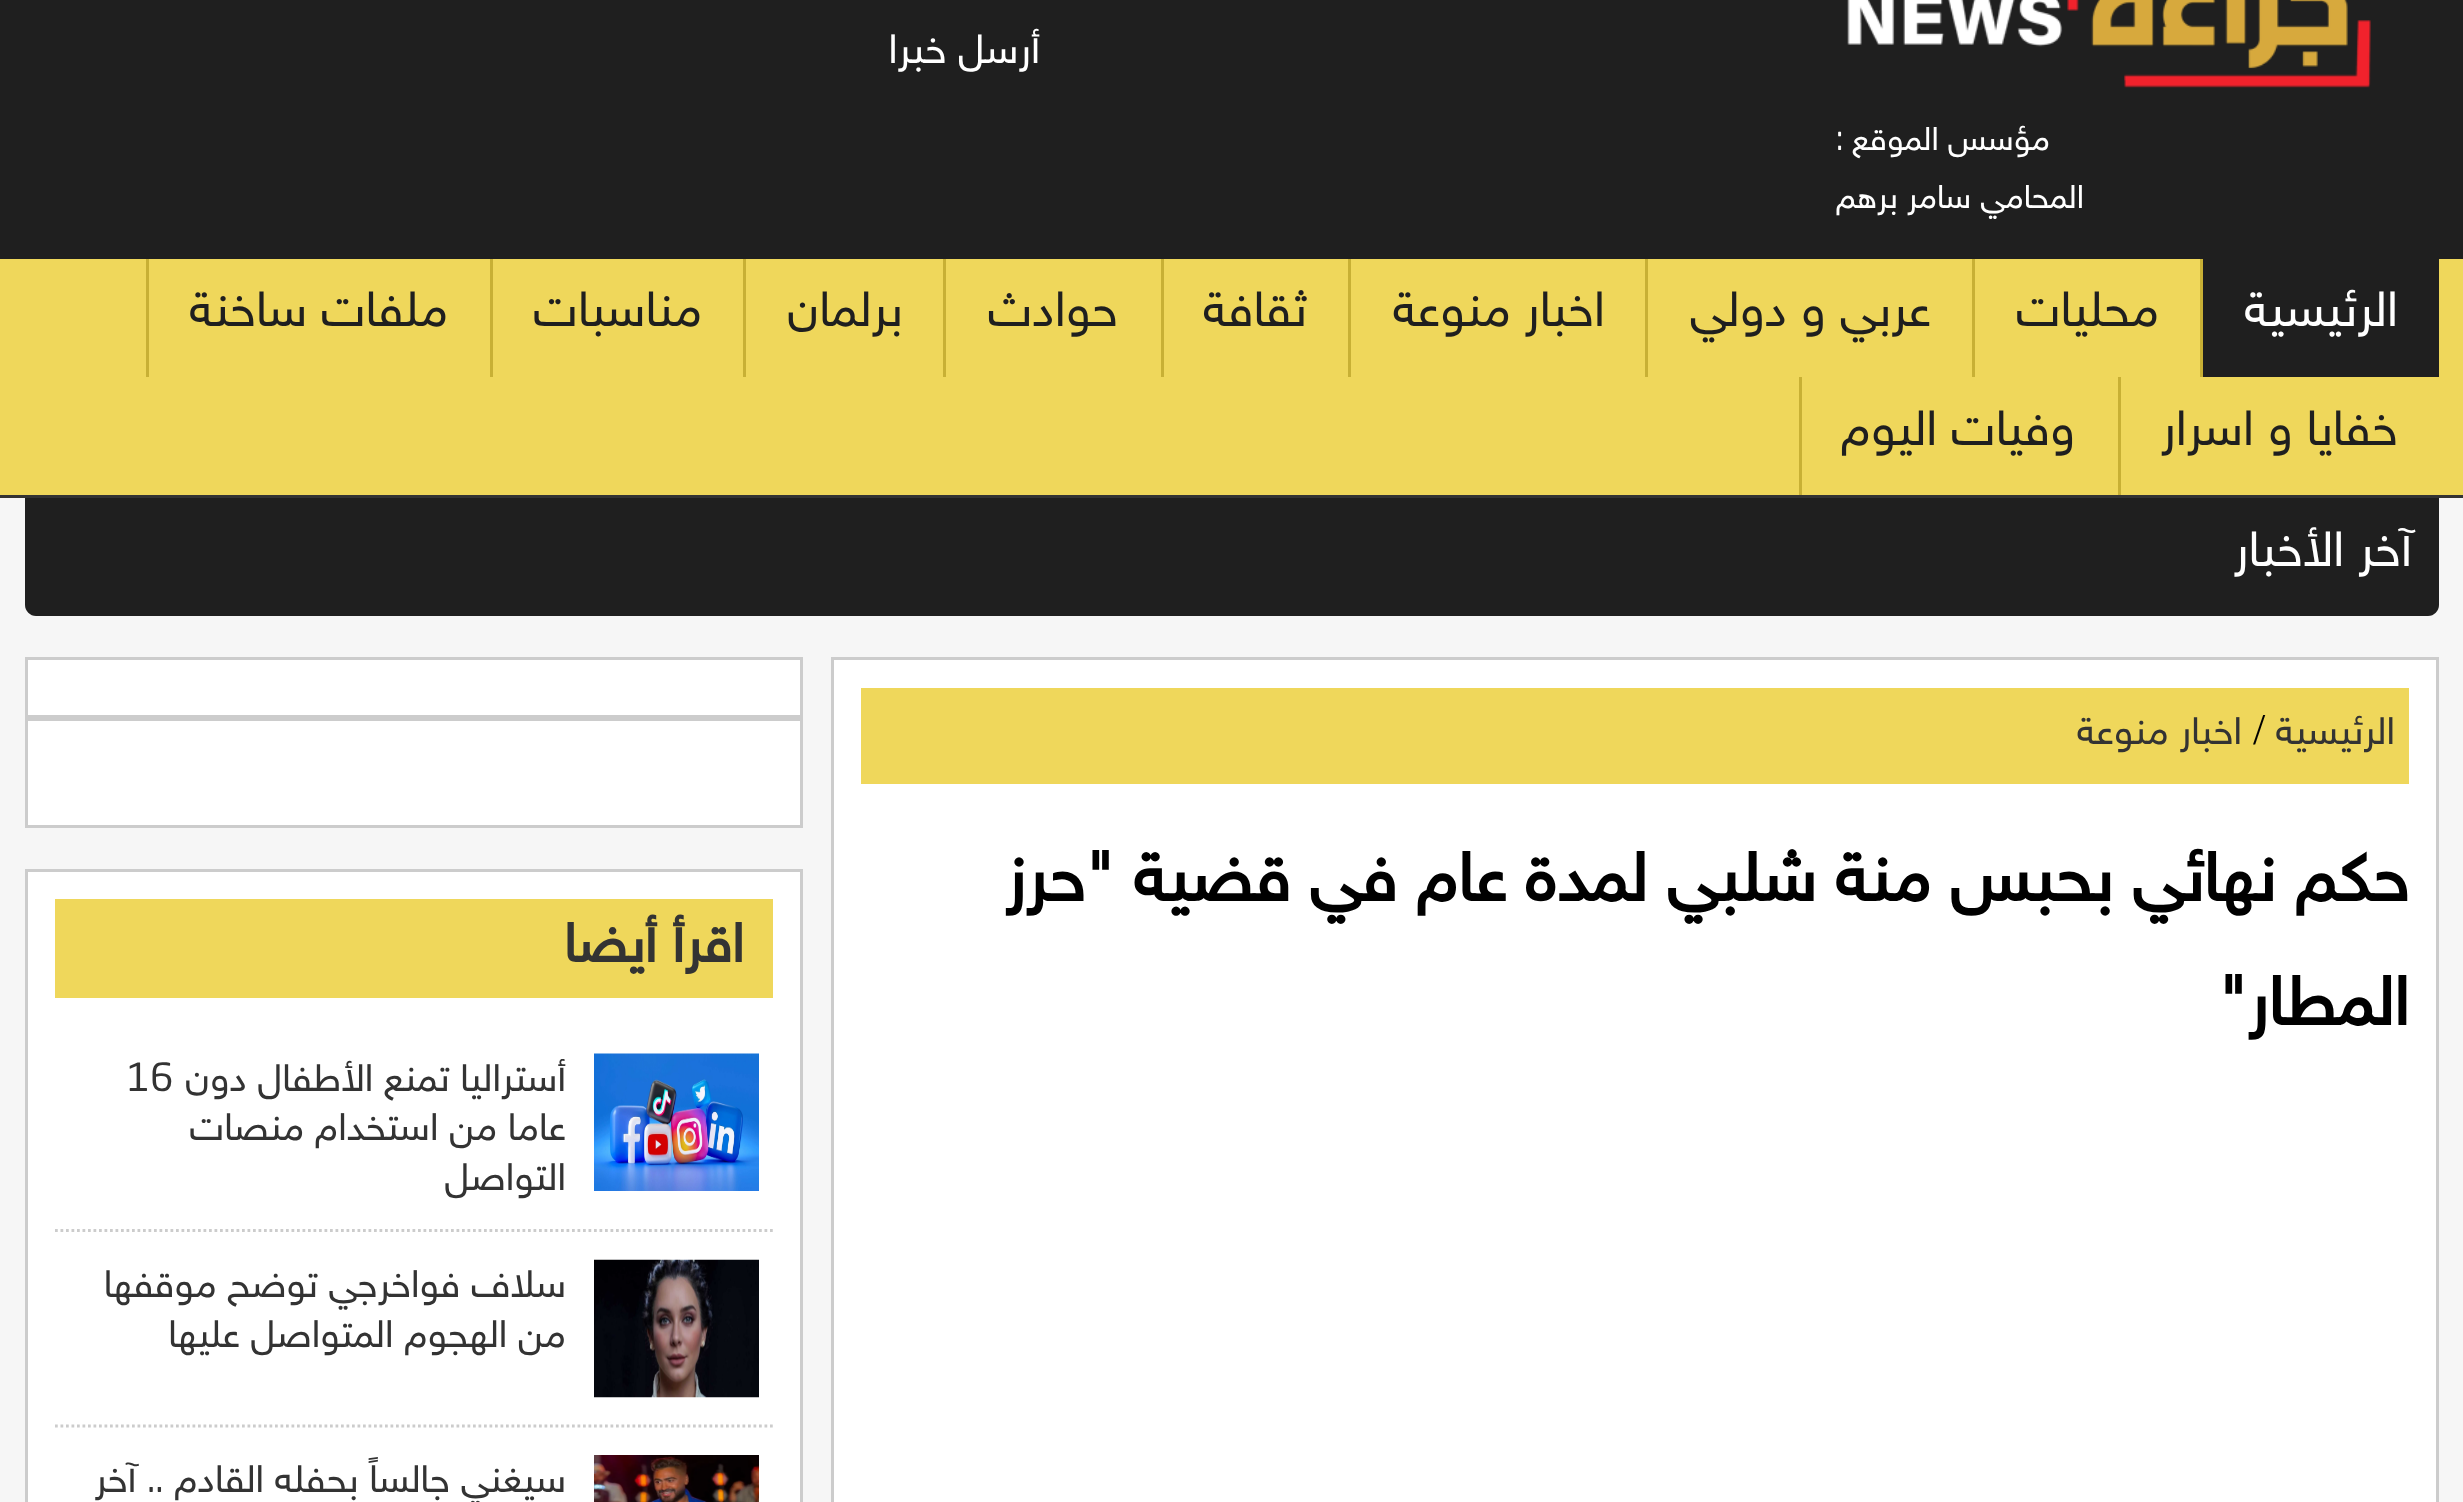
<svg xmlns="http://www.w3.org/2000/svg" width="2463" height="1502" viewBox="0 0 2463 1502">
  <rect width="100%" height="100%" fill="#f6f6f6"/>
  <rect x="0" y="0" width="2463" height="259" fill="#1f1f1f"/>
  <text x="1040" y="63" font-family="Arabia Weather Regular" font-size="41" direction="rtl" fill="#ffffff">أرسل خبرا</text>
  <image x="1847" y="0" width="524" height="88" href="img1.png"/>
  <text x="2050" y="150" font-family="Arabia Weather Regular" font-size="33" direction="rtl" fill="#ffffff">مؤسس الموقع</text>
  <text x="1836" y="150" font-family="Arabia Weather Regular" font-size="33" fill="#ffffff">:</text>
  <text x="2084" y="208" font-family="Arabia Weather Regular" font-size="33" direction="rtl" fill="#ffffff">المحامي سامر برهم</text>
  <rect x="0" y="259" width="2463" height="236" fill="#efd75b"/>
  <rect x="0" y="495" width="2463" height="3" fill="#333333"/>
  <rect x="2203" y="259" width="236" height="118" fill="#1f1f1f"/>
  <rect x="2200" y="259" width="3" height="118" fill="#c8b035"/>
  <text x="2398" y="326" font-family="Arabia Weather Regular" font-size="49.5" direction="rtl" fill="#ffffff">الرئيسية</text>
  <rect x="1972" y="259" width="3" height="118" fill="#c8b035"/>
  <text x="2159" y="326" font-family="Arabia Weather Regular" font-size="49.5" direction="rtl" fill="#1f1f1f">محليات</text>
  <rect x="1645" y="259" width="3" height="118" fill="#c8b035"/>
  <text x="1931" y="326" font-family="Arabia Weather Regular" font-size="49.5" direction="rtl" fill="#1f1f1f">عربي و دولي</text>
  <rect x="1348" y="259" width="3" height="118" fill="#c8b035"/>
  <text x="1605" y="326" font-family="Arabia Weather Regular" font-size="49.5" direction="rtl" fill="#1f1f1f">اخبار منوعة</text>
  <rect x="1161" y="259" width="3" height="118" fill="#c8b035"/>
  <text x="1307" y="326" font-family="Arabia Weather Regular" font-size="49.5" direction="rtl" fill="#1f1f1f">ثقافة</text>
  <rect x="943" y="259" width="3" height="118" fill="#c8b035"/>
  <text x="1118" y="326" font-family="Arabia Weather Regular" font-size="49.5" direction="rtl" fill="#1f1f1f">حوادث</text>
  <rect x="743" y="259" width="3" height="118" fill="#c8b035"/>
  <text x="903" y="326" font-family="Arabia Weather Regular" font-size="49.5" direction="rtl" fill="#1f1f1f">برلمان</text>
  <rect x="490" y="259" width="3" height="118" fill="#c8b035"/>
  <text x="702" y="326" font-family="Arabia Weather Regular" font-size="49.5" direction="rtl" fill="#1f1f1f">مناسبات</text>
  <rect x="146" y="259" width="3" height="118" fill="#c8b035"/>
  <text x="448" y="326" font-family="Arabia Weather Regular" font-size="49.5" direction="rtl" fill="#1f1f1f">ملفات ساخنة</text>
  <rect x="2118" y="377" width="3" height="118" fill="#c8b035"/>
  <text x="2398" y="445" font-family="Arabia Weather Regular" font-size="49.5" direction="rtl" fill="#1f1f1f">خفايا و اسرار</text>
  <rect x="1799" y="377" width="3" height="118" fill="#c8b035"/>
  <text x="2075" y="445" font-family="Arabia Weather Regular" font-size="49.5" direction="rtl" fill="#1f1f1f">وفيات اليوم</text>
  <path d="M25 498H2439V605C2439 611 2434 616 2428 616H36C30 616 25 611 25 605Z" fill="#1f1f1f"/>
  <text x="2412" y="566" font-family="Arabia Weather Regular" font-size="49.5" direction="rtl" fill="#ffffff">آخر الأخبار</text>
  <rect x="832.5" y="658.5" width="1605" height="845" fill="#ffffff" stroke="#cccccc" stroke-width="3"/>
  <rect x="861" y="688" width="1548" height="96" fill="#efd75b"/>
  <text x="2395" y="744" font-family="Arabia Weather Regular" font-size="38.5" direction="rtl" fill="#333333">الرئيسية</text>
  <text x="2253" y="744" font-family="Liberation Serif" font-size="44" fill="#000000">/</text>
  <text x="2242" y="744" font-family="Arabia Weather Regular" font-size="38.5" direction="rtl" fill="#333333">اخبار منوعة</text>
  <text x="2409" y="901" font-family="Arabia Weather Regular" font-size="68.75" font-weight="bold" direction="rtl" fill="#000000">حكم نهائي بحبس منة شلبي لمدة عام في قضية "حرز</text>
  <text x="2409" y="1025" font-family="Arabia Weather Regular" font-size="68.75" font-weight="bold" direction="rtl" fill="#000000">المطار"</text>
  <rect x="26.5" y="658.5" width="775" height="58" fill="#ffffff" stroke="#cccccc" stroke-width="3"/>
  <rect x="26.5" y="719.5" width="775" height="107" fill="#ffffff" stroke="#cccccc" stroke-width="3"/>
  <rect x="26.5" y="870.5" width="775" height="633" fill="#ffffff" stroke="#cccccc" stroke-width="3"/>
  <rect x="55" y="899" width="718" height="99" fill="#efd75b"/>
  <text x="744" y="962" font-family="Arabia Weather Regular" font-size="55" font-weight="bold" direction="rtl" fill="#333333">اقرأ أيضا</text>
  <path d="M55 1230.5H773" fill="none" stroke="#cccccc" stroke-width="2.8" stroke-dasharray="2.75 2.75"/>
  <image x="594" y="1053" width="165" height="138" href="img2.png"/>
  <text x="566" y="1091" font-family="Arabia Weather Regular" font-size="38.5" direction="rtl" fill="#333333">أستراليا تمنع الأطفال دون</text>
  <text x="127" y="1091" font-family="Arabia Weather Regular" font-size="38.5" fill="#333333">16</text>
  <text x="566" y="1140" font-family="Arabia Weather Regular" font-size="38.5" direction="rtl" fill="#333333">عاما من استخدام منصات</text>
  <text x="566" y="1190" font-family="Arabia Weather Regular" font-size="38.5" direction="rtl" fill="#333333">التواصل</text>
  <path d="M55 1426H773" fill="none" stroke="#cccccc" stroke-width="2.8" stroke-dasharray="2.75 2.75"/>
  <image x="594" y="1259" width="165" height="139" href="img3.png"/>
  <text x="566" y="1297" font-family="Arabia Weather Regular" font-size="38.5" direction="rtl" fill="#333333">سلاف فواخرجي توضح موقفها</text>
  <text x="566" y="1347" font-family="Arabia Weather Regular" font-size="38.5" direction="rtl" fill="#333333">من الهجوم المتواصل عليها</text>
  <image x="594" y="1455" width="165" height="47" href="img4.png"/>
  <text x="566" y="1492" font-family="Arabia Weather Regular" font-size="38.5" direction="rtl" fill="#333333">سيغني جالساً بحفله القادم .. آخر</text>
</svg>
